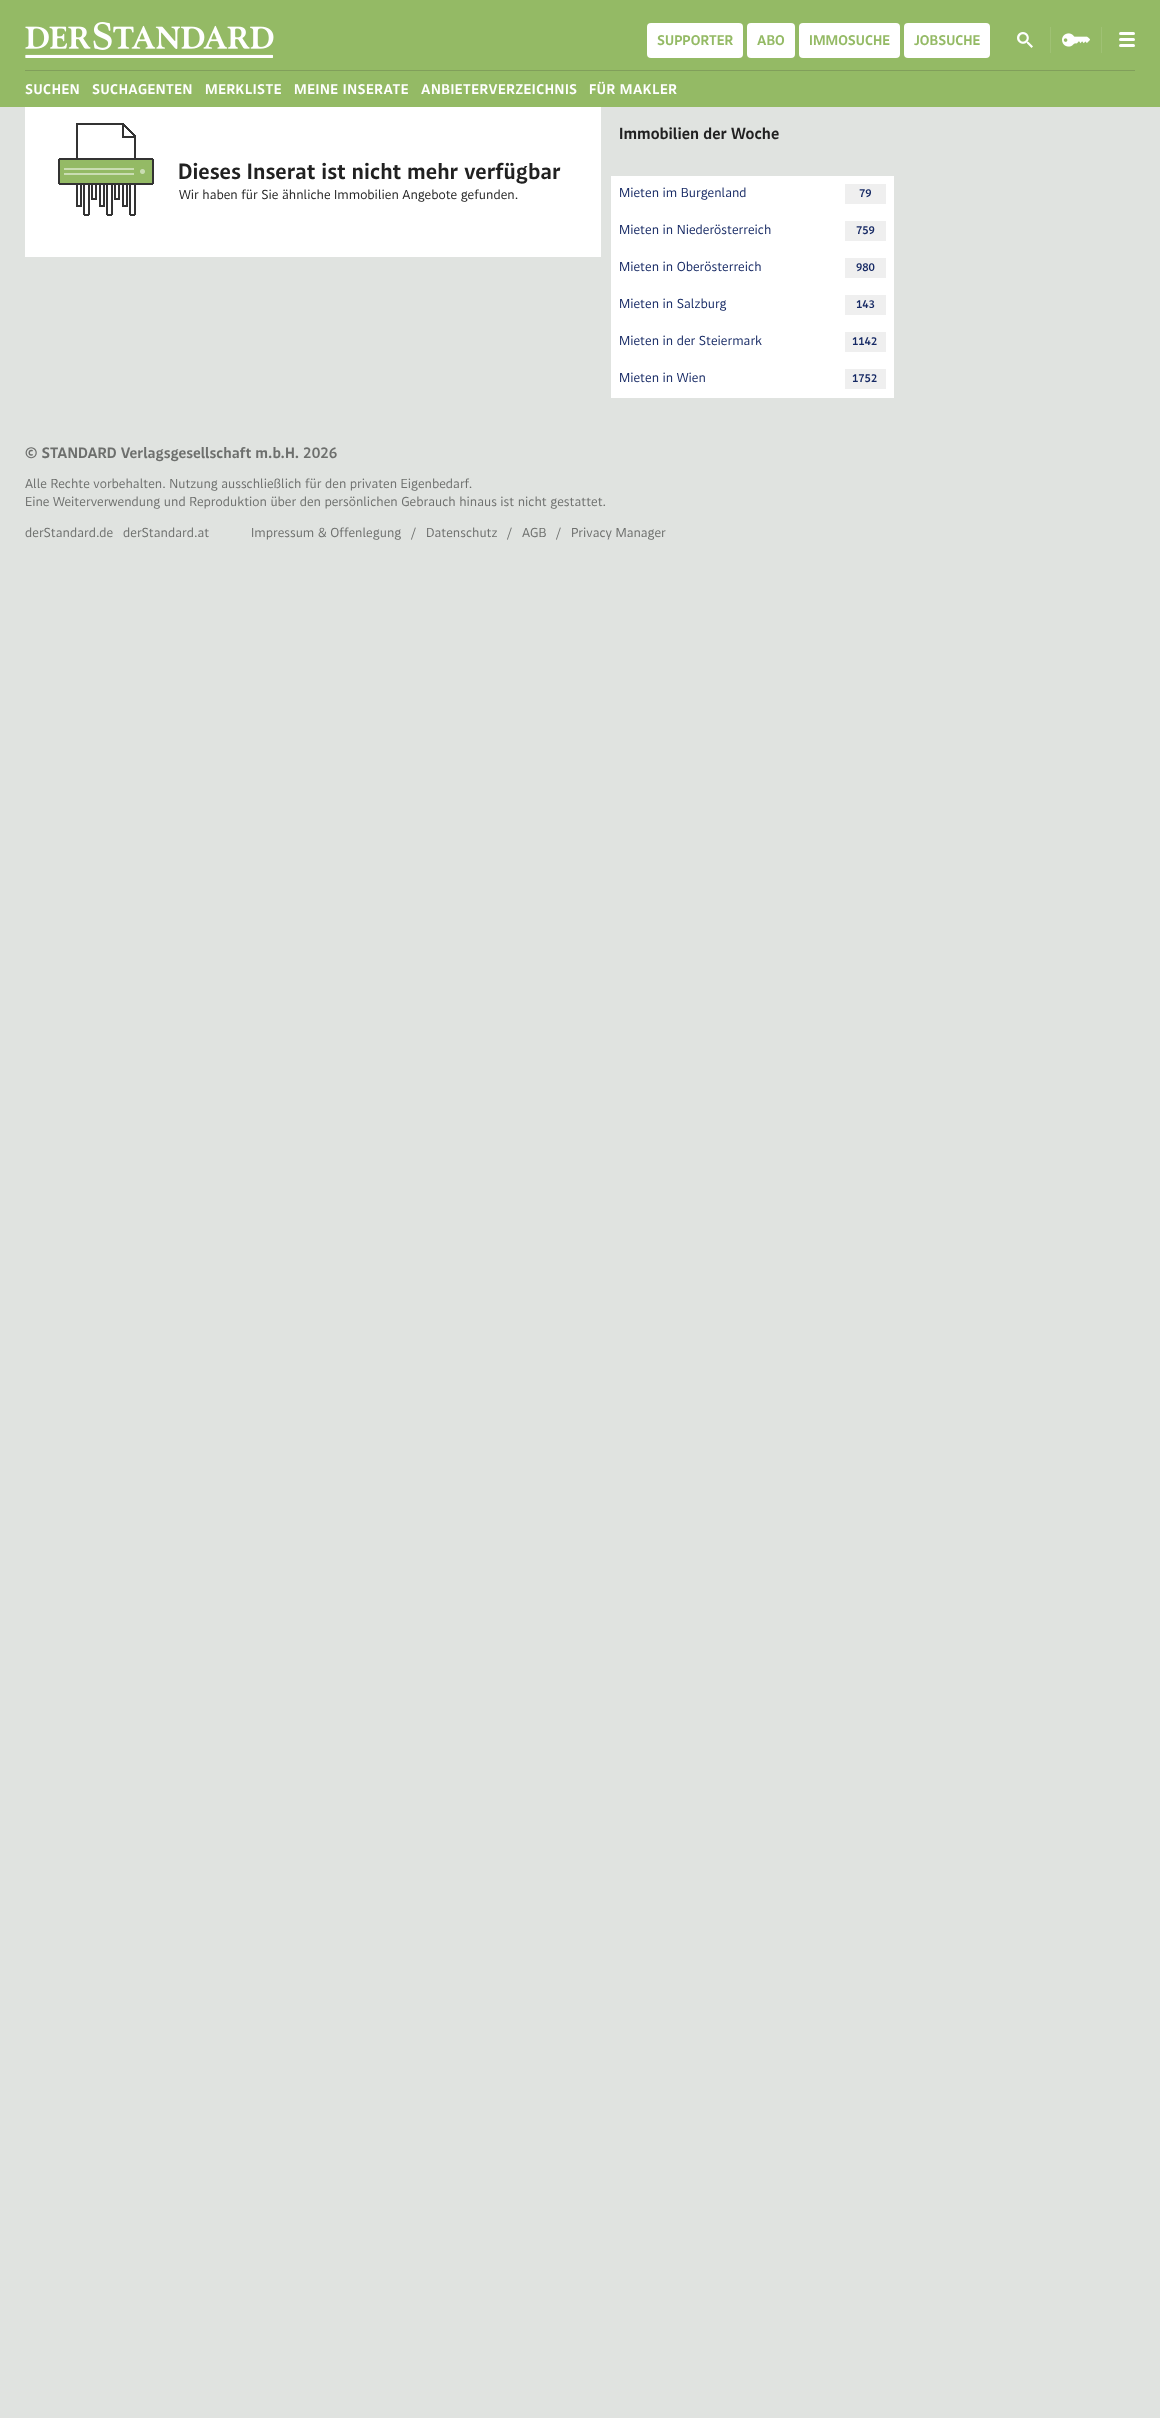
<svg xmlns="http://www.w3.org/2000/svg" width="1160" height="2418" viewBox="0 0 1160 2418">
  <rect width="100%" height="100%" fill="#e0e3e0"/>
  <rect x="0" y="0" width="1160" height="107" fill="#94ba65"/>
  <image x="25" y="22" width="249" height="36" href="img1.png"/>
  <rect x="647" y="23" width="96" height="35" rx="4" fill="#ffffff"/>
  <text x="657" y="45" font-family="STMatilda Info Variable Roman" font-size="14" font-weight="bold" fill="#94ba65">SUPPORTER</text>
  <rect x="747" y="23" width="48" height="35" rx="4" fill="#ffffff"/>
  <text x="757" y="45" font-family="STMatilda Info Variable Roman" font-size="14" font-weight="bold" fill="#94ba65">ABO</text>
  <rect x="799" y="23" width="101" height="35" rx="4" fill="#ffffff"/>
  <text x="809" y="45" font-family="STMatilda Info Variable Roman" font-size="14" font-weight="bold" fill="#94ba65">IMMOSUCHE</text>
  <rect x="904" y="23" width="86" height="35" rx="4" fill="#ffffff"/>
  <text x="914" y="45" font-family="STMatilda Info Variable Roman" font-size="14" font-weight="bold" fill="#94ba65">JOBSUCHE</text>
  <image x="1017" y="32" width="16" height="16" href="img2.png"/>
  <rect x="1050" y="27" width="1" height="26" fill="#9fc174"/>
  <image x="1062" y="33" width="28" height="14" href="img3.png"/>
  <rect x="1101" y="27" width="1" height="26" fill="#9fc174"/>
  <rect x="1119" y="32" width="16" height="3" rx="1.5" fill="#ffffff"/>
  <rect x="1119" y="38" width="16" height="3" rx="1.5" fill="#ffffff"/>
  <rect x="1119" y="44" width="16" height="3" rx="1.5" fill="#ffffff"/>
  <rect x="25" y="70" width="1110" height="1" fill="#819f5b"/>
  <text x="25" y="94" font-family="STMatilda Info Variable Roman" font-size="14" font-weight="bold" letter-spacing="0.5" fill="#ffffff">SUCHEN</text>
  <text x="92" y="94" font-family="STMatilda Info Variable Roman" font-size="14" font-weight="bold" letter-spacing="0.5" fill="#ffffff">SUCHAGENTEN</text>
  <text x="205" y="94" font-family="STMatilda Info Variable Roman" font-size="14" font-weight="bold" letter-spacing="0.5" fill="#ffffff">MERKLISTE</text>
  <text x="294" y="94" font-family="STMatilda Info Variable Roman" font-size="14" font-weight="bold" letter-spacing="0.5" fill="#ffffff">MEINE INSERATE</text>
  <text x="421" y="94" font-family="STMatilda Info Variable Roman" font-size="14" font-weight="bold" letter-spacing="0.5" fill="#ffffff">ANBIETERVERZEICHNIS</text>
  <text x="589" y="94" font-family="STMatilda Info Variable Roman" font-size="14" font-weight="bold" letter-spacing="0.5" fill="#ffffff">FÜR MAKLER</text>
  <rect x="25" y="107" width="576" height="150" fill="#ffffff"/>
  <image x="58" y="123" width="96" height="93" href="img4.png"/>
  <text x="178" y="179" font-family="STMatilda Info Variable Roman" font-size="22" font-weight="bold" fill="#212121">Dieses Inserat ist nicht mehr verfügbar</text>
  <text x="179" y="199" font-family="STMatilda Info Variable Roman" font-size="13" fill="#212121">Wir haben für Sie ähnliche Immobilien Angebote gefunden.</text>
  <text x="619" y="139" font-family="STMatilda Info Variable Roman" font-size="16" font-weight="bold" fill="#212121">Immobilien der Woche</text>
  <rect x="611" y="176" width="283" height="222" fill="#ffffff"/>
  <text x="619" y="197" font-family="STMatilda Info Variable Roman" font-size="13" fill="#162964">Mieten im Burgenland</text>
  <rect x="845" y="184" width="41" height="20" fill="#efefef"/>
  <text x="859" y="197" font-family="STMatilda Info Variable Roman" font-size="11" font-weight="bold" fill="#162964">79</text>
  <text x="619" y="234" font-family="STMatilda Info Variable Roman" font-size="13" fill="#162964">Mieten in Niederösterreich</text>
  <rect x="845" y="221" width="41" height="20" fill="#efefef"/>
  <text x="856" y="234" font-family="STMatilda Info Variable Roman" font-size="11" font-weight="bold" fill="#162964">759</text>
  <text x="619" y="271" font-family="STMatilda Info Variable Roman" font-size="13" fill="#162964">Mieten in Oberösterreich</text>
  <rect x="845" y="258" width="41" height="20" fill="#efefef"/>
  <text x="856" y="271" font-family="STMatilda Info Variable Roman" font-size="11" font-weight="bold" fill="#162964">980</text>
  <text x="619" y="308" font-family="STMatilda Info Variable Roman" font-size="13" fill="#162964">Mieten in Salzburg</text>
  <rect x="845" y="295" width="41" height="20" fill="#efefef"/>
  <text x="856" y="308" font-family="STMatilda Info Variable Roman" font-size="11" font-weight="bold" fill="#162964">143</text>
  <text x="619" y="345" font-family="STMatilda Info Variable Roman" font-size="13" fill="#162964">Mieten in der Steiermark</text>
  <rect x="845" y="332" width="41" height="20" fill="#efefef"/>
  <text x="852" y="345" font-family="STMatilda Info Variable Roman" font-size="11" font-weight="bold" fill="#162964">1142</text>
  <text x="619" y="382" font-family="STMatilda Info Variable Roman" font-size="13" fill="#162964">Mieten in Wien</text>
  <rect x="845" y="369" width="41" height="20" fill="#efefef"/>
  <text x="852" y="382" font-family="STMatilda Info Variable Roman" font-size="11" font-weight="bold" fill="#162964">1752</text>
  <text x="25" y="458" font-family="STMatilda Info Variable Roman" font-size="15" font-weight="bold" fill="#6d6f6d">© STANDARD Verlagsgesellschaft m.b.H. 2026</text>
  <text x="25" y="488" font-family="STMatilda Info Variable Roman" font-size="13" fill="#6d6f6d">Alle Rechte vorbehalten. Nutzung ausschließlich für den privaten Eigenbedarf.</text>
  <text x="25" y="506" font-family="STMatilda Info Variable Roman" font-size="13" fill="#6d6f6d">Eine Weiterverwendung und Reproduktion über den persönlichen Gebrauch hinaus ist nicht gestattet.</text>
  <text x="25" y="537" font-family="STMatilda Info Variable Roman" font-size="13" fill="#6d6f6d">derStandard.de</text>
  <text x="123" y="537" font-family="STMatilda Info Variable Roman" font-size="13" fill="#6d6f6d">derStandard.at</text>
  <text x="251" y="537" font-family="STMatilda Info Variable Roman" font-size="13" fill="#6d6f6d">Impressum &amp; Offenlegung</text>
  <text x="411" y="537" font-family="STMatilda Info Variable Roman" font-size="13" fill="#6d6f6d">/</text>
  <text x="426" y="537" font-family="STMatilda Info Variable Roman" font-size="13" fill="#6d6f6d">Datenschutz</text>
  <text x="507" y="537" font-family="STMatilda Info Variable Roman" font-size="13" fill="#6d6f6d">/</text>
  <text x="522" y="537" font-family="STMatilda Info Variable Roman" font-size="13" fill="#6d6f6d">AGB</text>
  <text x="556" y="537" font-family="STMatilda Info Variable Roman" font-size="13" fill="#6d6f6d">/</text>
  <text x="571" y="537" font-family="STMatilda Info Variable Roman" font-size="13" fill="#6d6f6d">Privacy Manager</text>
</svg>
